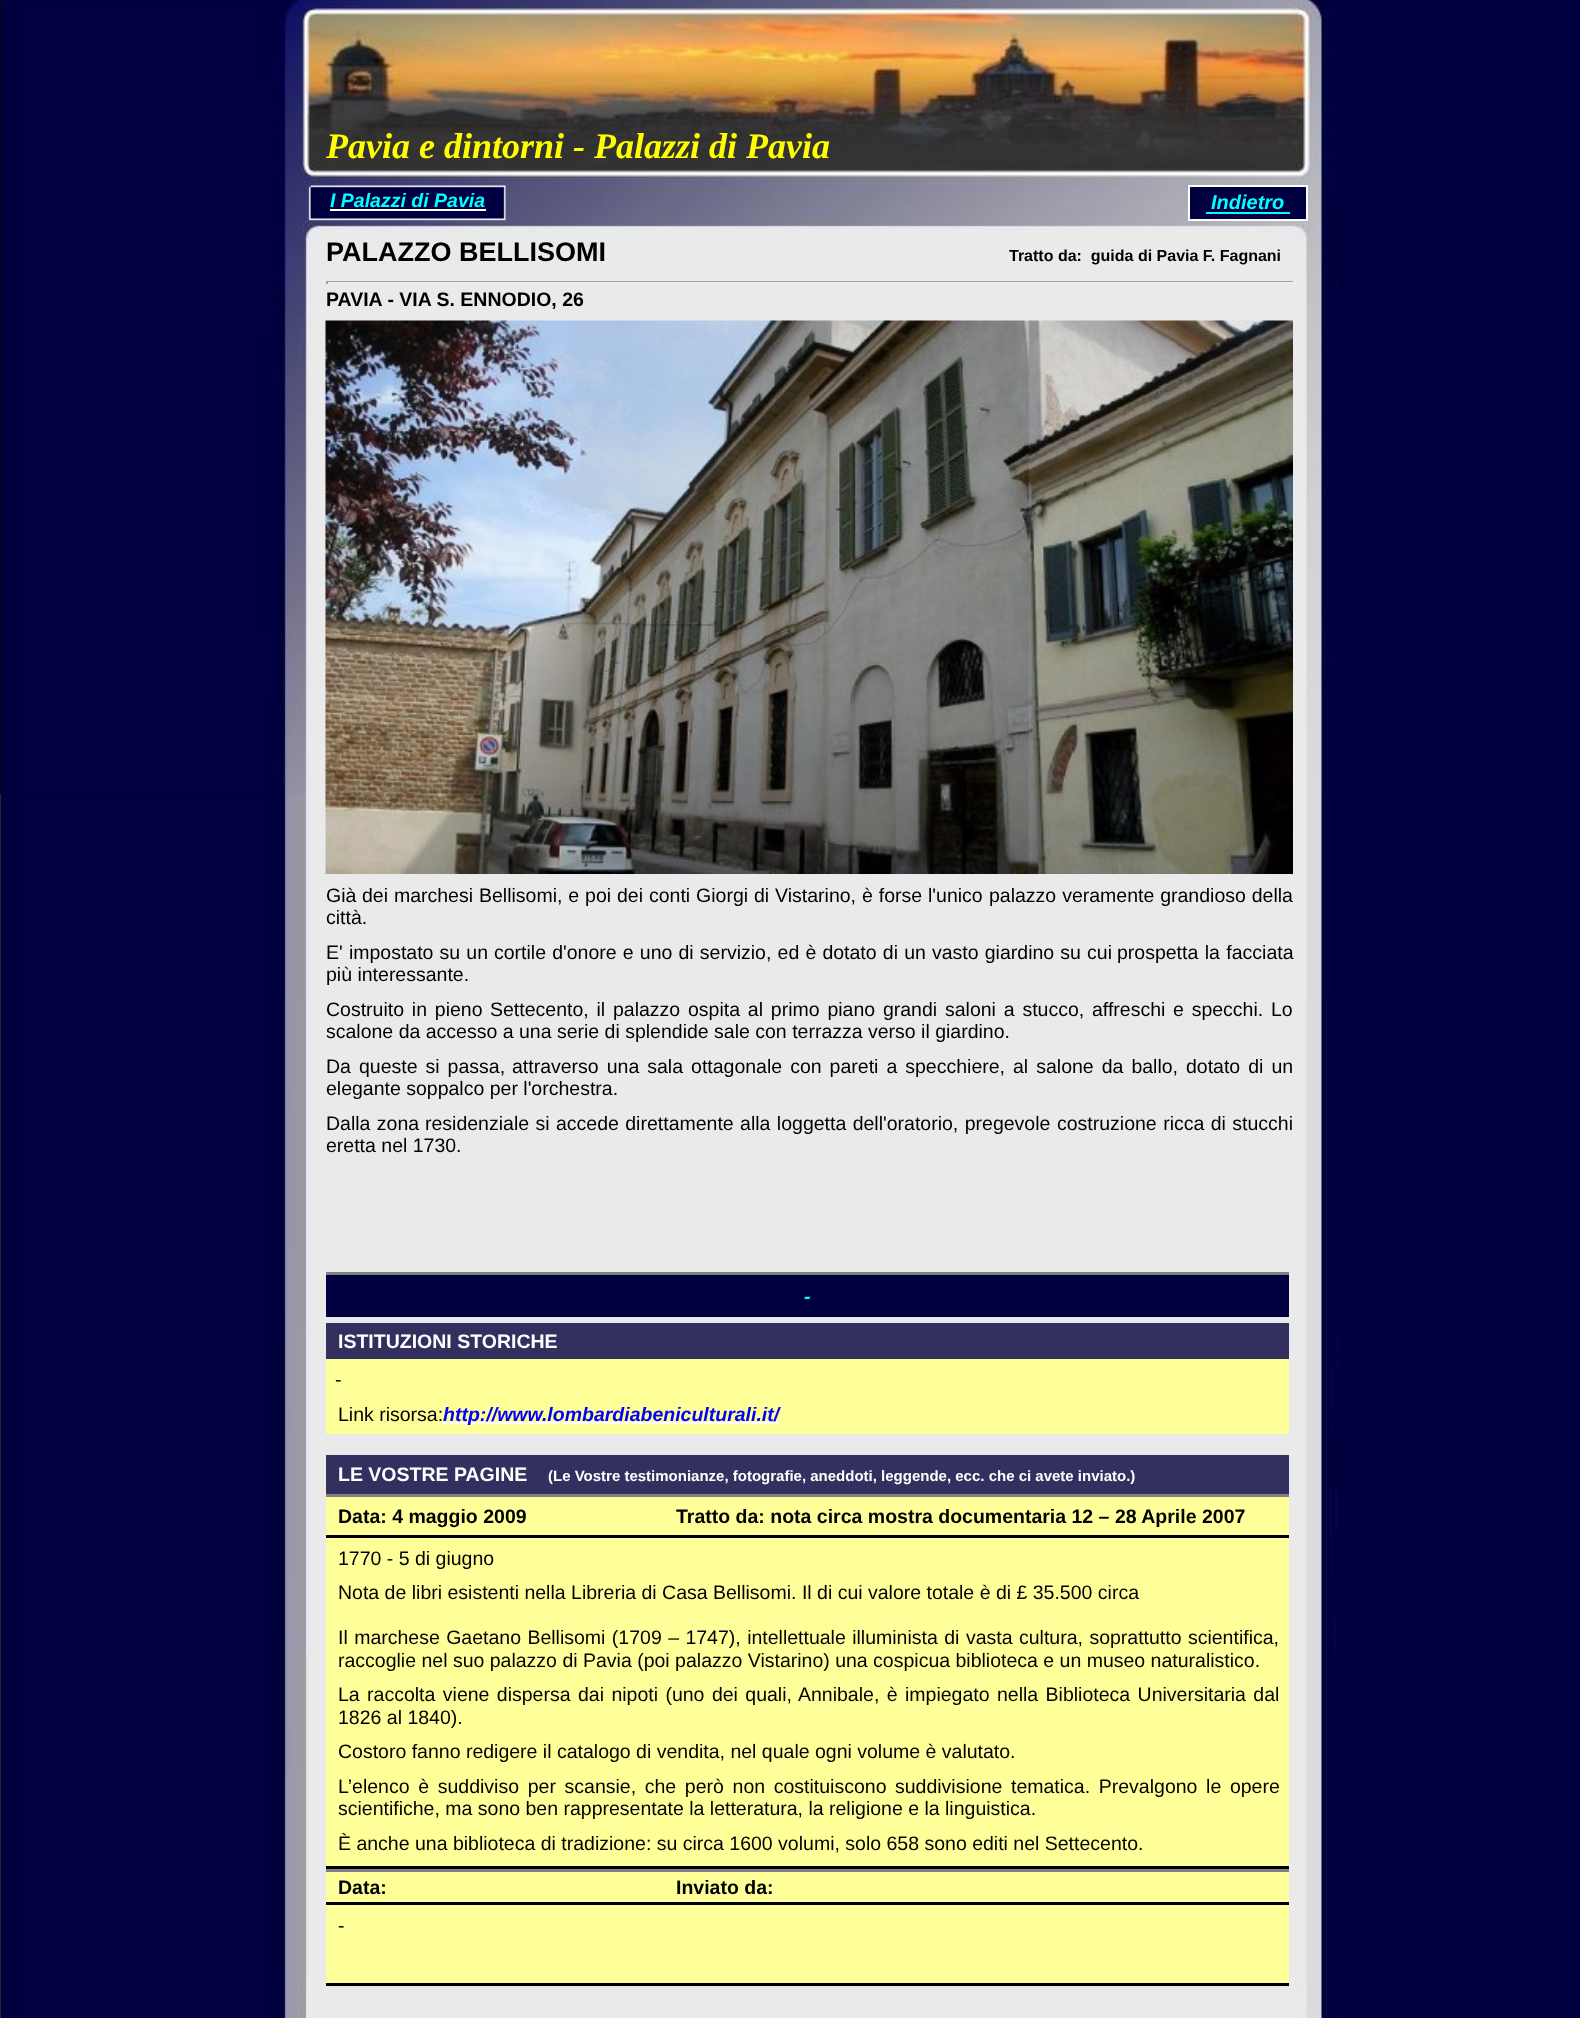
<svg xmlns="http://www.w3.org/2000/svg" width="1580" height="2018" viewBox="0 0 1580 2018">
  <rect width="100%" height="100%" fill="#000040"/>
  <image x="0" y="0" width="1340" height="924" href="img1.png"/>
  <text x="326" y="158" font-family="Liberation Serif" font-size="36" font-weight="bold" font-style="italic" fill="#ffff00">Pavia e dintorni - Palazzi di Pavia</text>
  <image x="308" y="185" width="198" height="36" href="img2.png"/>
  <text x="330" y="207" font-family="Liberation Sans" font-size="19.5" font-weight="bold" font-style="italic" fill="#00ffff">I Palazzi di Pavia</text>
  <rect x="330" y="209" width="156" height="2" fill="#ffffff"/>
  <rect x="1189" y="186" width="118" height="34" fill="#000040" stroke="#ffffff" stroke-width="2"/>
  <text x="1211" y="209" font-family="Liberation Sans" font-size="20" font-weight="bold" font-style="italic" fill="#00ffff">Indietro</text>
  <rect x="1206" y="212" width="84" height="2" fill="#00ffff"/>
  <text x="326" y="261" font-family="Liberation Sans" font-size="27" font-weight="bold" fill="#000000">PALAZZO BELLISOMI</text>
  <text x="1009" y="261" font-family="Liberation Sans" font-size="16" font-weight="bold" fill="#000000" xml:space="preserve">Tratto da:  guida di Pavia F. Fagnani</text>
  <rect x="326" y="281" width="969" height="1" fill="#9f9f9f"/>
  <rect x="1293" y="281" width="2" height="3" fill="#eeeeee"/>
  <rect x="326" y="282" width="969" height="2" fill="#eeeeee"/>
  <rect x="326" y="281" width="2" height="3" fill="#9f9f9f"/>
  <text x="326" y="306" font-family="Liberation Sans" font-size="19.5" font-weight="bold" fill="#000000">PAVIA - VIA S. ENNODIO, 26</text>
  <image x="0" y="794" width="1340" height="1224" href="img4.png"/>
  <image x="325" y="320" width="968" height="554" href="img3.png"/>
  <text x="326" y="902" font-family="Liberation Sans" font-size="19.5" fill="#000000">Già</text>
  <text x="362" y="902" word-spacing="0.5" font-family="Liberation Sans" font-size="19.5" fill="#000000">dei marchesi Bellisomi, e poi dei conti Giorgi di Vistarino, è forse l'unico</text>
  <text x="989" y="902" word-spacing="0.5" font-family="Liberation Sans" font-size="19.5" fill="#000000">palazzo veramente grandioso della</text>
  <text x="326" y="924" font-family="Liberation Sans" font-size="19.5" fill="#000000">città.</text>
  <text x="326" y="959" word-spacing="0.75" font-family="Liberation Sans" font-size="19.5" fill="#000000">E' impostato su un</text>
  <text x="494" y="959" word-spacing="0.75" font-family="Liberation Sans" font-size="19.5" fill="#000000">cortile d'onore e uno di servizio, ed è dotato di un vasto giardino su cui</text>
  <text x="1117" y="959" word-spacing="1" font-family="Liberation Sans" font-size="19.5" fill="#000000">prospetta la facciata</text>
  <text x="326" y="981" font-family="Liberation Sans" font-size="19.5" fill="#000000">più interessante.</text>
  <text x="326" y="1016" word-spacing="2.4" font-family="Liberation Sans" font-size="19.5" fill="#000000">Costruito in pieno</text>
  <text x="490" y="1016" word-spacing="2.4" font-family="Liberation Sans" font-size="19.5" fill="#000000">Settecento, il palazzo ospita al primo piano grandi saloni a stucco, affreschi</text>
  <text x="1173" y="1016" word-spacing="2.4" font-family="Liberation Sans" font-size="19.5" fill="#000000">e specchi. Lo</text>
  <text x="326" y="1038" font-family="Liberation Sans" font-size="19.5" fill="#000000">scalone da accesso a una serie di splendide sale con terrazza verso il giardino.</text>
  <text x="326" y="1073" word-spacing="2.6" font-family="Liberation Sans" font-size="19.5" fill="#000000">Da queste si passa,</text>
  <text x="512" y="1073" word-spacing="2.6" font-family="Liberation Sans" font-size="19.5" fill="#000000">attraverso una sala ottagonale con pareti a specchiere, al salone da ballo,</text>
  <text x="1186" y="1073" word-spacing="2.6" font-family="Liberation Sans" font-size="19.5" fill="#000000">dotato di un</text>
  <text x="326" y="1095" font-family="Liberation Sans" font-size="19.5" fill="#000000">elegante soppalco per l'orchestra.</text>
  <text x="326" y="1130" word-spacing="1" font-family="Liberation Sans" font-size="19.5" fill="#000000">Dalla zona</text>
  <text x="425" y="1130" word-spacing="1" font-family="Liberation Sans" font-size="19.5" fill="#000000">residenziale si accede direttamente alla loggetta dell'oratorio, pregevole</text>
  <text x="1057" y="1130" word-spacing="1" font-family="Liberation Sans" font-size="19.5" fill="#000000">costruzione ricca di stucchi</text>
  <text x="326" y="1152" font-family="Liberation Sans" font-size="19.5" fill="#000000">eretta nel 1730.</text>
  <rect x="326" y="1275" width="963" height="42" fill="#000040"/>
  <rect x="326" y="1272" width="963" height="3" fill="#808080"/>
  <text x="804" y="1303" font-family="Liberation Sans" font-size="19.5" font-weight="bold" font-style="italic" fill="#00ffff">-</text>
  <rect x="326" y="1323" width="963" height="36" fill="#333060"/>
  <text x="338" y="1348" font-family="Liberation Sans" font-size="19.5" font-weight="bold" fill="#ffffff">ISTITUZIONI STORICHE</text>
  <rect x="326" y="1359" width="963" height="75" fill="#ffff99"/>
  <text x="335" y="1386" font-family="Liberation Sans" font-size="19.5" fill="#000000">-</text>
  <text x="338" y="1421" font-family="Liberation Sans" font-size="19.5" fill="#000000">Link risorsa:</text>
  <rect x="443" y="1422" width="336" height="2" fill="#ffffff"/>
  <text x="443" y="1421" font-family="Liberation Sans" font-size="19.5" font-weight="bold" font-style="italic" fill="#0000ff">http://www.lombardiabeniculturali.it/</text>
  <rect x="326" y="1455" width="963" height="39" fill="#333060"/>
  <text x="338" y="1481" font-family="Liberation Sans" font-size="19.5" font-weight="bold" fill="#ffffff">LE VOSTRE PAGINE</text>
  <text x="548" y="1481" font-family="Liberation Sans" font-size="15" font-weight="bold" fill="#ffffff">(Le Vostre testimonianze, fotografie, aneddoti, leggende, ecc. che ci avete inviato.)</text>
  <rect x="326" y="1497" width="963" height="38" fill="#ffff99"/>
  <rect x="326" y="1494" width="963" height="3" fill="#808080"/>
  <text x="338" y="1523" font-family="Liberation Sans" font-size="19.5" font-weight="bold" fill="#000000">Data: 4 maggio 2009</text>
  <text x="676" y="1523" font-family="Liberation Sans" font-size="19.5" font-weight="bold" fill="#000000">Tratto da: nota circa mostra documentaria 12 – 28 Aprile 2007</text>
  <rect x="326" y="1538" width="963" height="328" fill="#ffff99"/>
  <rect x="326" y="1535" width="963" height="3" fill="#000000"/>
  <rect x="326" y="1866" width="963" height="3" fill="#000000"/>
  <text x="338" y="1565" font-family="Liberation Sans" font-size="19.5" fill="#000000">1770 - 5 di giugno</text>
  <text x="338" y="1599" font-family="Liberation Sans" font-size="19.5" fill="#000000">Nota de libri esistenti nella Libreria di Casa Bellisomi. Il di cui valore totale è di £ 35.500 circa</text>
  <text x="338" y="1644" word-spacing="1" font-family="Liberation Sans" font-size="19.5" fill="#000000">Il marchese Gaetano Bellisomi (1709 – 1747), intellettuale illuminista di</text>
  <text x="966" y="1644" word-spacing="1" font-family="Liberation Sans" font-size="19.5" fill="#000000">vasta cultura, soprattutto scientifica,</text>
  <text x="338" y="1667" font-family="Liberation Sans" font-size="19.5" fill="#000000">raccoglie nel suo palazzo di Pavia (poi palazzo Vistarino) una cospicua biblioteca e un museo naturalistico.</text>
  <text x="338" y="1701" word-spacing="2" font-family="Liberation Sans" font-size="19.5" fill="#000000">La raccolta viene dispersa dai nipoti (uno dei quali,</text>
  <text x="798" y="1701" word-spacing="2" font-family="Liberation Sans" font-size="19.5" fill="#000000">Annibale, è impiegato nella Biblioteca Universitaria dal</text>
  <text x="338" y="1724" font-family="Liberation Sans" font-size="19.5" fill="#000000">1826 al 1840).</text>
  <text x="338" y="1758" font-family="Liberation Sans" font-size="19.5" fill="#000000">Costoro fanno redigere il catalogo di vendita, nel quale ogni volume è valutato.</text>
  <text x="338" y="1793" word-spacing="3.25" font-family="Liberation Sans" font-size="19.5" fill="#000000">L’elenco è suddiviso per scansie, che però non costituiscono</text>
  <text x="895" y="1793" word-spacing="3.25" font-family="Liberation Sans" font-size="19.5" fill="#000000">suddivisione tematica. Prevalgono le opere</text>
  <text x="338" y="1815" font-family="Liberation Sans" font-size="19.5" fill="#000000">scientifiche, ma sono ben rappresentate la letteratura, la religione e la linguistica.</text>
  <text x="338" y="1850" font-family="Liberation Sans" font-size="19.5" fill="#000000">È anche una biblioteca di tradizione: su circa 1600 volumi, solo 658 sono editi nel Settecento.</text>
  <rect x="326" y="1872" width="963" height="30" fill="#ffff99"/>
  <rect x="326" y="1869" width="963" height="3" fill="#808080"/>
  <text x="338" y="1894" font-family="Liberation Sans" font-size="19.5" font-weight="bold" fill="#000000">Data:</text>
  <text x="676" y="1894" font-family="Liberation Sans" font-size="19.5" font-weight="bold" fill="#000000">Inviato da:</text>
  <rect x="326" y="1905" width="963" height="78" fill="#ffff99"/>
  <rect x="326" y="1902" width="963" height="3" fill="#000000"/>
  <rect x="326" y="1983" width="963" height="3" fill="#000000"/>
  <text x="338" y="1932" font-family="Liberation Sans" font-size="19.5" fill="#000000">-</text>
</svg>
